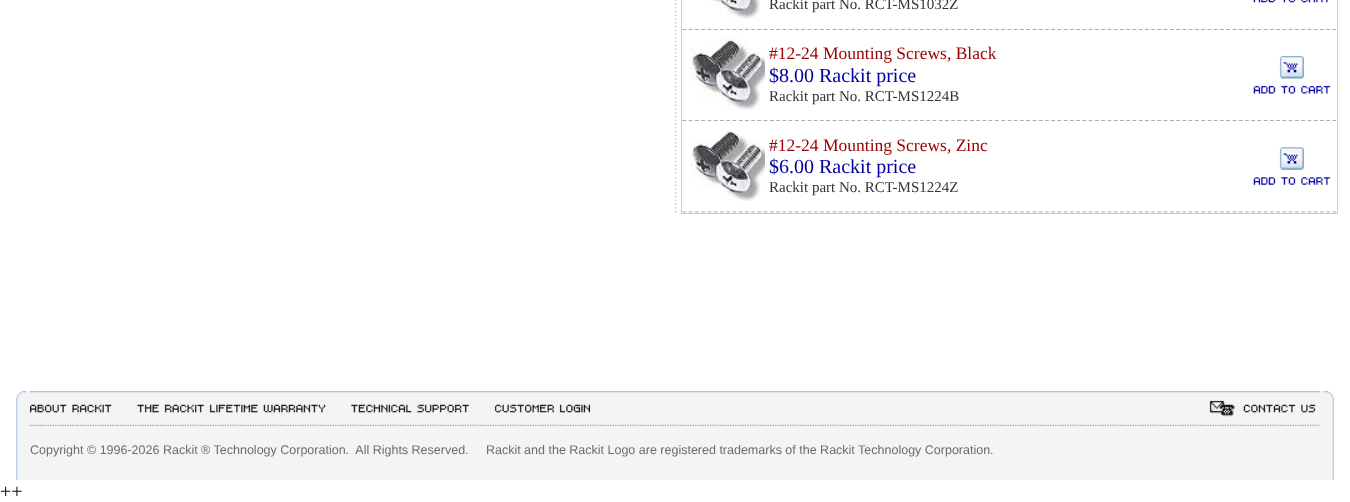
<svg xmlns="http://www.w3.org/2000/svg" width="1350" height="502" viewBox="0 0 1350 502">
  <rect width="100%" height="100%" fill="#ffffff"/>
  <image x="674" y="0" width="3" height="213" href="img1.png"/>
  <rect x="681.5" y="-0.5" width="656" height="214" fill="none" stroke="#cdcdcd"/>
  <path d="M682.5 29.5H1336" fill="none" stroke="#ababab" stroke-width="1.2" stroke-dasharray="3.75 2.5"/>
  <image x="707" y="0" width="53" height="19" href="img2.png"/>
  <text x="769" y="9" font-family="Liberation Serif" font-size="15" fill="#333333">Rackit part No. RCT-MS1032Z</text>
  <image x="1253" y="0" width="75" height="3" href="img3.png"/>
  <path d="M682.5 120.5H1336" fill="none" stroke="#ababab" stroke-width="1.2" stroke-dasharray="3.75 2.5"/>
  <image x="690" y="37" width="75" height="73" href="img4.png"/>
  <text x="769" y="59" font-family="Liberation Serif" font-size="17.5" fill="#9a0000">#12-24 Mounting Screws, Black</text>
  <text x="769" y="82" font-family="Liberation Serif" font-size="20" fill="#0000a0">$8.00 Rackit price</text>
  <text x="769" y="101" font-family="Liberation Serif" font-size="15" fill="#333333">Rackit part No. RCT-MS1224B</text>
  <image x="1253" y="56" width="78" height="38" href="img5.png"/>
  <path d="M682.5 212H1336" fill="none" stroke="#ababab" stroke-width="1.2" stroke-dasharray="3.75 2.5"/>
  <image x="690" y="129" width="75" height="72" href="img6.png"/>
  <text x="769" y="151" font-family="Liberation Serif" font-size="17.5" fill="#9a0000">#12-24 Mounting Screws, Zinc</text>
  <text x="769" y="173" font-family="Liberation Serif" font-size="20" fill="#0000a0">$6.00 Rackit price</text>
  <text x="769" y="192" font-family="Liberation Serif" font-size="15" fill="#333333">Rackit part No. RCT-MS1224Z</text>
  <image x="1253" y="147" width="78" height="38" href="img7.png"/>
  <rect x="16" y="391" width="1318" height="89" fill="#f4f4f7"/>
  <image x="16" y="391" width="11" height="30" href="img8.png"/>
  <image x="30" y="391" width="1290" height="2" href="img9.png"/>
  <image x="1323" y="391" width="11" height="30" href="img10.png"/>
  <image x="30" y="404" width="560" height="9" href="img11.png"/>
  <image x="1209" y="400" width="107" height="17" href="img12.png"/>
  <image x="16" y="421" width="2" height="10" href="img13.png"/>
  <image x="30" y="424" width="1290" height="3" href="img14.png"/>
  <image x="30" y="424" width="125" height="2" href="img15.png"/>
  <image x="1332" y="421" width="2" height="10" href="img16.png"/>
  <image x="16" y="431" width="2" height="49" href="img17.png"/>
  <text x="30" y="454" font-family="Liberation Sans" font-size="12.5" fill="#6c6c6c" xml:space="preserve">Copyright © 1996-2026 Rackit ® Technology Corporation.  All Rights Reserved.     Rackit and the Rackit Logo are registered trademarks of the Rackit Technology Corporation.</text>
  <image x="1332" y="431" width="2" height="49" href="img18.png"/>
  <text x="0" y="498" font-family="Liberation Serif" font-size="20" fill="#000000">++</text>
</svg>
